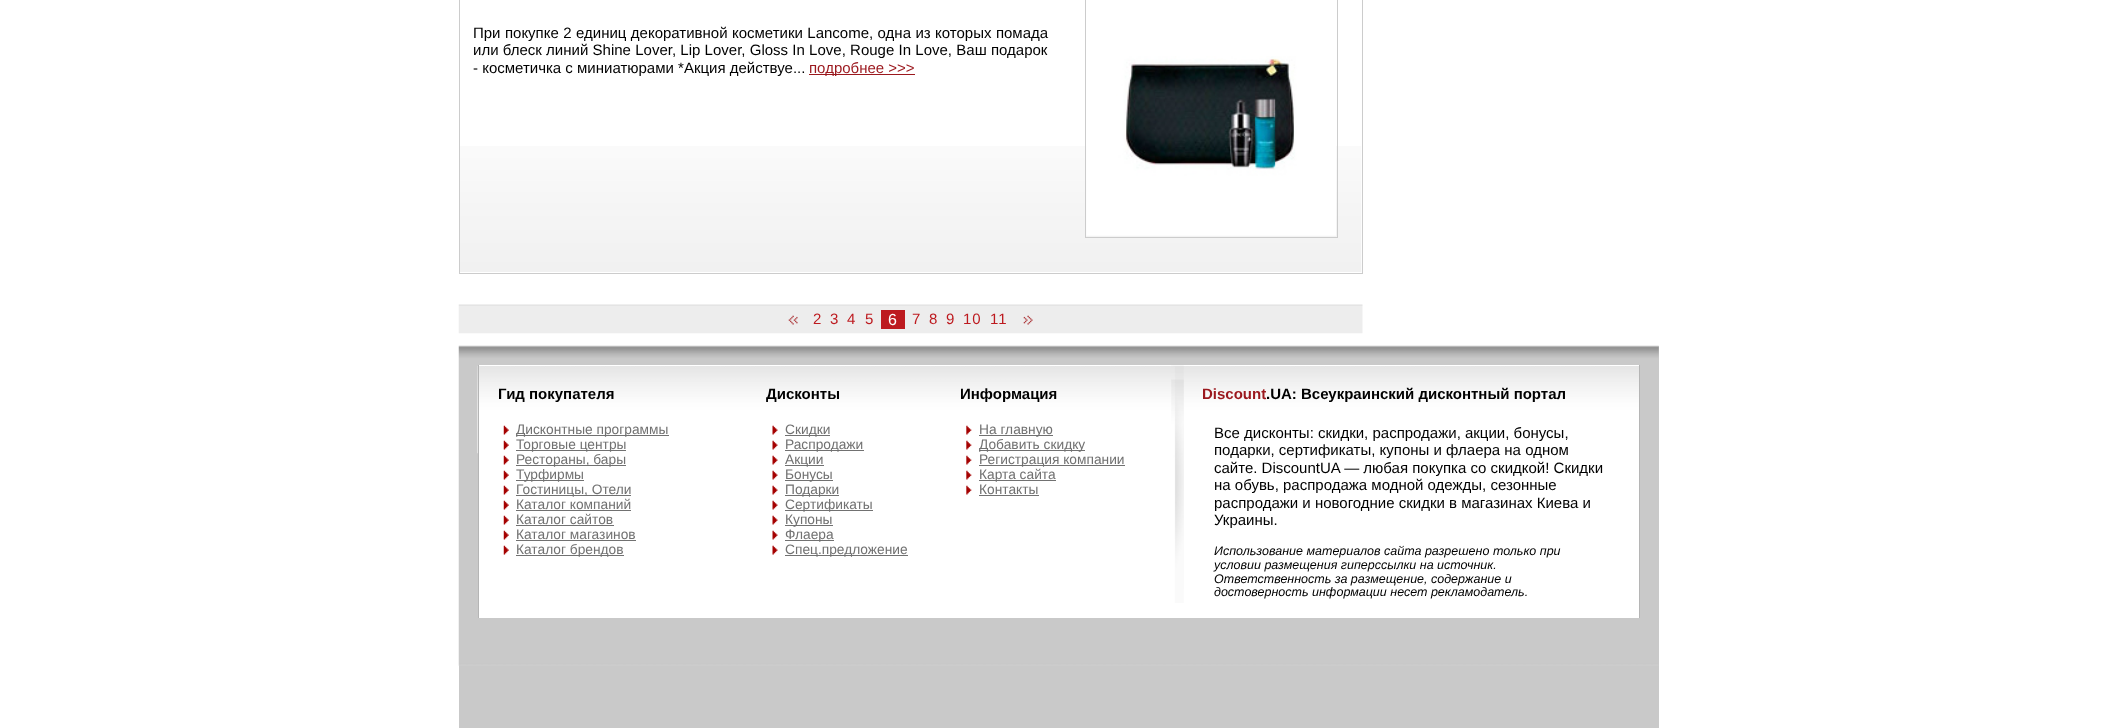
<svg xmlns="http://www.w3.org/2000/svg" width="2117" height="728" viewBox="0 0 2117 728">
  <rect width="100%" height="100%" fill="#ffffff"/>
  <rect x="459.5" y="-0.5" width="903" height="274" fill="none" stroke="#cccccc"/>
  <image x="460" y="146" width="902" height="126" href="img1.png"/>
  <text x="473" y="38" word-spacing="0.25" font-family="Liberation Sans" font-size="15" fill="#000000">При покупке 2 единиц декоративной косметики Lancome, одна из которых помада</text>
  <text x="473" y="55" word-spacing="0.1" font-family="Liberation Sans" font-size="15" fill="#000000">или блеск линий Shine Lover, Lip Lover, Gloss In Love, Rouge In Love, Ваш подарок</text>
  <text x="473" y="73" font-family="Liberation Sans" font-size="15" fill="#000000">- косметичка с миниатюрами *Акция действуе...</text>
  <rect x="809" y="74" width="106" height="1" fill="#9b181e"/>
  <text x="809" y="73" font-family="Liberation Sans" font-size="15" fill="#9b181e">подробнее &gt;&gt;&gt;</text>
  <rect x="1085.5" y="-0.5" width="252" height="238" fill="none" stroke="#cccccc"/>
  <image x="1086" y="56" width="250" height="180" href="img2.png"/>
  <image x="458" y="304" width="905" height="30" href="img3.png"/>
  <image x="788" y="315" width="10" height="10" href="img4.png"/>
  <text x="813" y="324" font-family="Liberation Sans" font-size="15" letter-spacing="1" fill="#bd1a1f">2</text>
  <text x="830" y="324" font-family="Liberation Sans" font-size="15" letter-spacing="1" fill="#bd1a1f">3</text>
  <text x="847" y="324" font-family="Liberation Sans" font-size="15" letter-spacing="1" fill="#bd1a1f">4</text>
  <text x="865" y="324" font-family="Liberation Sans" font-size="15" letter-spacing="1" fill="#bd1a1f">5</text>
  <rect x="881" y="310" width="24" height="19" fill="#bd1a1f"/>
  <text x="888" y="325" font-family="Liberation Sans" font-size="16" letter-spacing="2" fill="#ffffff">6</text>
  <text x="912" y="324" font-family="Liberation Sans" font-size="15" letter-spacing="1" fill="#bd1a1f">7</text>
  <text x="929" y="324" font-family="Liberation Sans" font-size="15" letter-spacing="1" fill="#bd1a1f">8</text>
  <text x="946" y="324" font-family="Liberation Sans" font-size="15" letter-spacing="1" fill="#bd1a1f">9</text>
  <text x="963" y="324" font-family="Liberation Sans" font-size="15" letter-spacing="1" fill="#bd1a1f">10</text>
  <text x="990" y="324" font-family="Liberation Sans" font-size="15" letter-spacing="1" fill="#bd1a1f">11</text>
  <image x="1023" y="315" width="10" height="10" href="img5.png"/>
  <rect x="459" y="346" width="1200" height="382" fill="#c9c9c9"/>
  <image x="458" y="345" width="1201" height="321" href="img6.png"/>
  <rect x="479" y="453" width="1160" height="165" fill="#ffffff"/>
  <image x="477" y="365" width="1162" height="89" href="img7.png"/>
  <rect x="478" y="365" width="1162" height="1" fill="#ffffff"/>
  <rect x="1639" y="365" width="1" height="253" fill="#b5b5b5"/>
  <rect x="478" y="365" width="1" height="253" fill="#b5b5b5"/>
  <text x="498" y="399" font-family="Liberation Sans" font-size="15" font-weight="bold" fill="#000000">Гид покупателя</text>
  <image x="503" y="425" width="6" height="10" href="img8.png"/>
  <rect x="516" y="435" width="153" height="1" fill="#717171"/>
  <text x="516" y="434" font-family="Liberation Sans" font-size="13.75" fill="#717171">Дисконтные программы</text>
  <image x="503" y="440" width="6" height="10" href="img8.png"/>
  <rect x="516" y="450" width="110" height="1" fill="#717171"/>
  <text x="516" y="449" font-family="Liberation Sans" font-size="13.75" fill="#717171">Торговые центры</text>
  <image x="503" y="455" width="6" height="10" href="img8.png"/>
  <rect x="516" y="465" width="110" height="1" fill="#717171"/>
  <text x="516" y="464" font-family="Liberation Sans" font-size="13.75" fill="#717171">Рестораны, бары</text>
  <image x="503" y="470" width="6" height="10" href="img8.png"/>
  <rect x="516" y="480" width="68" height="1" fill="#717171"/>
  <text x="516" y="479" font-family="Liberation Sans" font-size="13.75" fill="#717171">Турфирмы</text>
  <image x="503" y="485" width="6" height="10" href="img8.png"/>
  <rect x="516" y="495" width="115" height="1" fill="#717171"/>
  <text x="516" y="494" font-family="Liberation Sans" font-size="13.75" fill="#717171">Гостиницы, Отели</text>
  <image x="503" y="500" width="6" height="10" href="img8.png"/>
  <text x="516" y="509" font-family="Liberation Sans" font-size="13.75" fill="#717171">Каталог компаний</text>
  <rect x="516" y="510" width="115" height="1" fill="#717171"/>
  <image x="503" y="515" width="6" height="10" href="img8.png"/>
  <text x="516" y="524" font-family="Liberation Sans" font-size="13.75" fill="#717171">Каталог сайтов</text>
  <rect x="516" y="525" width="98" height="1" fill="#717171"/>
  <image x="503" y="530" width="6" height="10" href="img8.png"/>
  <text x="516" y="539" font-family="Liberation Sans" font-size="13.75" fill="#717171">Каталог магазинов</text>
  <rect x="516" y="540" width="120" height="1" fill="#717171"/>
  <image x="503" y="545" width="6" height="10" href="img9.png"/>
  <rect x="516" y="555" width="108" height="1" fill="#717171"/>
  <text x="516" y="554" font-family="Liberation Sans" font-size="13.75" fill="#717171">Каталог брендов</text>
  <text x="766" y="399" font-family="Liberation Sans" font-size="15" font-weight="bold" fill="#000000">Дисконты</text>
  <image x="772" y="425" width="6" height="10" href="img10.png"/>
  <rect x="785" y="435" width="45" height="1" fill="#717171"/>
  <text x="785" y="434" font-family="Liberation Sans" font-size="13.75" fill="#717171">Скидки</text>
  <image x="772" y="440" width="6" height="10" href="img10.png"/>
  <rect x="785" y="450" width="79" height="1" fill="#717171"/>
  <text x="785" y="449" font-family="Liberation Sans" font-size="13.75" fill="#717171">Распродажи</text>
  <image x="772" y="455" width="6" height="10" href="img10.png"/>
  <rect x="785" y="465" width="39" height="1" fill="#717171"/>
  <text x="785" y="464" font-family="Liberation Sans" font-size="13.75" fill="#717171">Акции</text>
  <image x="772" y="470" width="6" height="10" href="img10.png"/>
  <rect x="785" y="480" width="48" height="1" fill="#717171"/>
  <text x="785" y="479" font-family="Liberation Sans" font-size="13.75" fill="#717171">Бонусы</text>
  <image x="772" y="485" width="6" height="10" href="img10.png"/>
  <rect x="785" y="495" width="54" height="1" fill="#717171"/>
  <text x="785" y="494" font-family="Liberation Sans" font-size="13.75" fill="#717171">Подарки</text>
  <image x="772" y="500" width="6" height="10" href="img10.png"/>
  <rect x="785" y="510" width="88" height="1" fill="#717171"/>
  <text x="785" y="509" font-family="Liberation Sans" font-size="13.75" fill="#717171">Сертификаты</text>
  <image x="772" y="515" width="6" height="10" href="img10.png"/>
  <rect x="785" y="525" width="48" height="1" fill="#717171"/>
  <text x="785" y="524" font-family="Liberation Sans" font-size="13.75" fill="#717171">Купоны</text>
  <image x="772" y="530" width="6" height="10" href="img10.png"/>
  <rect x="785" y="540" width="49" height="1" fill="#717171"/>
  <text x="785" y="539" font-family="Liberation Sans" font-size="13.75" fill="#717171">Флаера</text>
  <image x="772" y="545" width="6" height="10" href="img11.png"/>
  <rect x="785" y="555" width="123" height="1" fill="#717171"/>
  <text x="785" y="554" font-family="Liberation Sans" font-size="13.75" fill="#717171">Спец.предложение</text>
  <text x="960" y="399" font-family="Liberation Sans" font-size="15" font-weight="bold" fill="#000000">Информация</text>
  <image x="966" y="425" width="6" height="10" href="img12.png"/>
  <rect x="979" y="435" width="74" height="1" fill="#717171"/>
  <text x="979" y="434" font-family="Liberation Sans" font-size="13.75" fill="#717171">На главную</text>
  <image x="966" y="440" width="6" height="10" href="img12.png"/>
  <rect x="979" y="450" width="106" height="1" fill="#717171"/>
  <text x="979" y="449" font-family="Liberation Sans" font-size="13.75" fill="#717171">Добавить скидку</text>
  <image x="966" y="455" width="6" height="10" href="img12.png"/>
  <rect x="979" y="465" width="146" height="1" fill="#717171"/>
  <text x="979" y="464" font-family="Liberation Sans" font-size="13.75" fill="#717171">Регистрация компании</text>
  <image x="966" y="470" width="6" height="10" href="img12.png"/>
  <rect x="979" y="480" width="77" height="1" fill="#717171"/>
  <text x="979" y="479" font-family="Liberation Sans" font-size="13.75" fill="#717171">Карта сайта</text>
  <image x="966" y="485" width="6" height="10" href="img12.png"/>
  <text x="979" y="494" font-family="Liberation Sans" font-size="13.75" fill="#717171">Контакты</text>
  <rect x="979" y="495" width="60" height="1" fill="#717171"/>
  <image x="1171" y="365" width="13" height="224" href="img13.png"/>
  <image x="1171" y="379" width="13" height="224" href="img14.png"/>
  <text x="1202" y="399" font-family="Liberation Sans" font-size="15" font-weight="bold" fill="#9b181e">Discount</text>
  <text x="1266" y="399" font-family="Liberation Sans" font-size="15" font-weight="bold" fill="#000000">.UA: Всеукраинский дисконтный портал</text>
  <text x="1214" y="438" font-family="Liberation Sans" font-size="15" fill="#000000">Все дисконты: скидки, распродажи, акции, бонусы,</text>
  <text x="1214" y="455" font-family="Liberation Sans" font-size="15" fill="#000000">подарки, сертификаты, купоны и флаера на одном</text>
  <text x="1214" y="473" font-family="Liberation Sans" font-size="15" fill="#000000">сайте. DiscountUA — любая покупка со скидкой! Скидки</text>
  <text x="1214" y="490" font-family="Liberation Sans" font-size="15" fill="#000000">на обувь, распродажа модной одежды, сезонные</text>
  <text x="1214" y="508" font-family="Liberation Sans" font-size="15" fill="#000000">распродажи и новогодние скидки в магазинах Киева и</text>
  <text x="1214" y="525" font-family="Liberation Sans" font-size="15" fill="#000000">Украины.</text>
  <text x="1214" y="555" font-family="Liberation Sans" font-size="12.5" font-style="italic" fill="#000000">Использование материалов сайта разрешено только при</text>
  <text x="1214" y="569" font-family="Liberation Sans" font-size="12.5" font-style="italic" fill="#000000">условии размещения гиперссылки на источник.</text>
  <text x="1214" y="583" font-family="Liberation Sans" font-size="12.5" font-style="italic" fill="#000000">Ответственность за размещение, содержание и</text>
  <text x="1214" y="596" font-family="Liberation Sans" font-size="12.5" font-style="italic" fill="#000000">достоверность информации несет рекламодатель.</text>
</svg>
